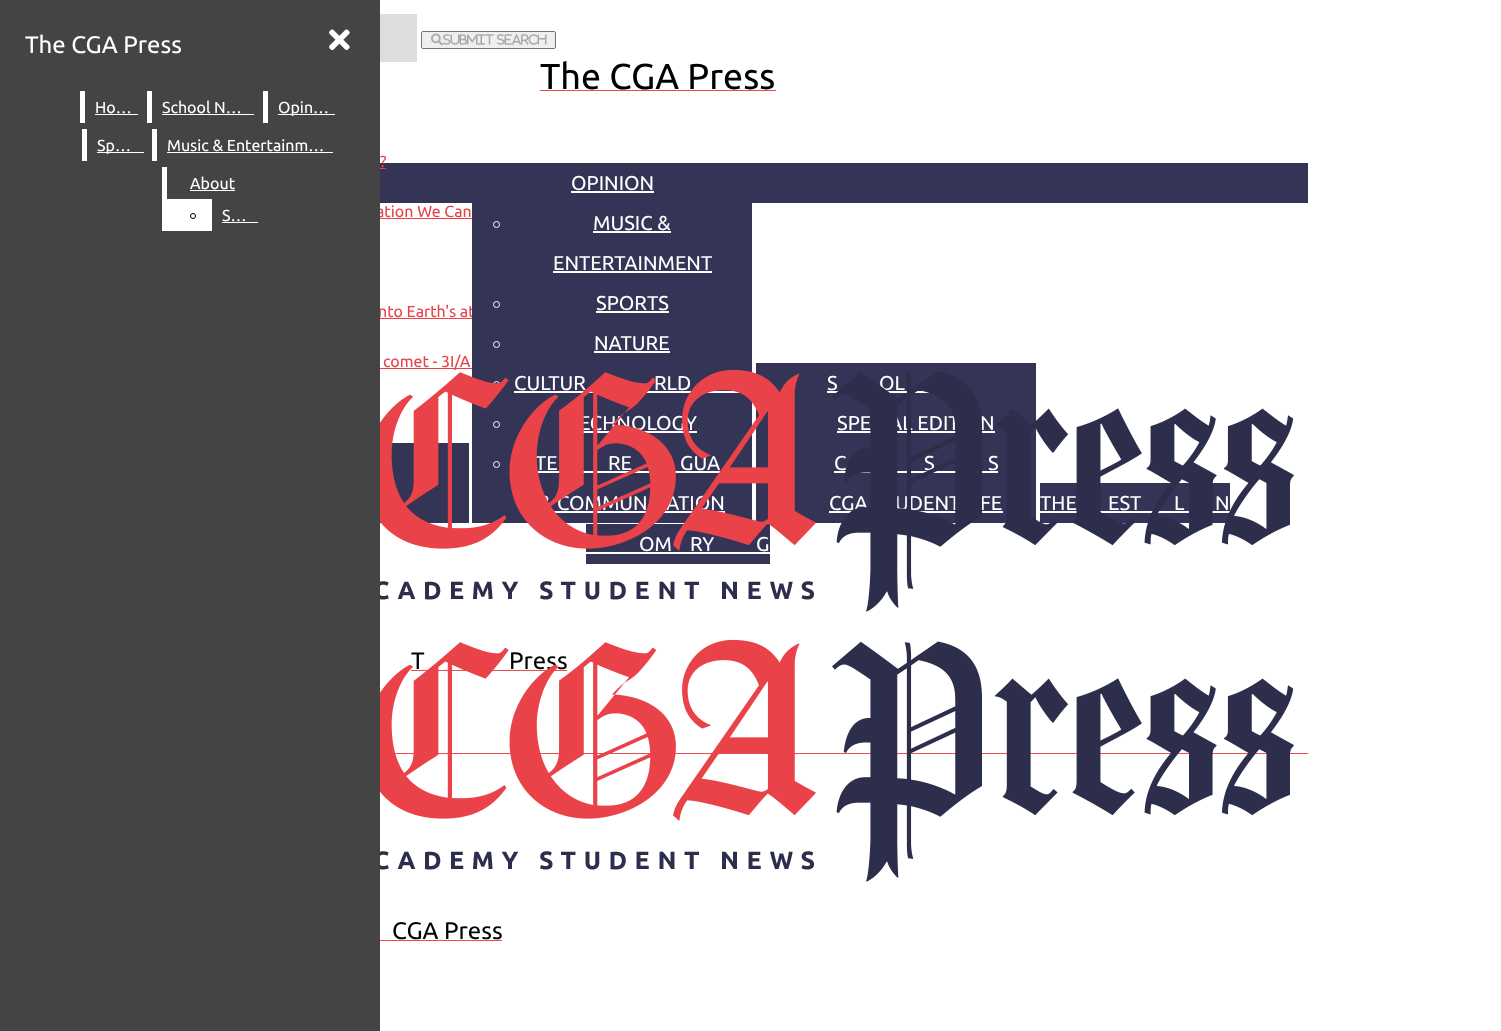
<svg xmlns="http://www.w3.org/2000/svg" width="1501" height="1031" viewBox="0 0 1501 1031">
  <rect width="100%" height="100%" fill="#ffffff"/>
  <text x="376" y="217" font-family="Ubuntu" font-size="16" fill="#e84249">ation We Can</text>
  <text x="378" y="317" font-family="Ubuntu" font-size="16" fill="#e84249">nto Earth's at</text>
  <rect x="0" y="0" width="380" height="1031" fill="#444444"/>
  <text x="25" y="53" font-family="Ubuntu" font-size="24" fill="#ffffff">The CGA Press</text>
  <image x="329" y="29" width="21" height="21" href="img1.png"/>
  <rect x="80" y="91" width="5" height="32" fill="#ffffff"/>
  <text x="95" y="113" font-family="Ubuntu" font-size="16" fill="#ffffff">Ho…</text>
  <rect x="95" y="114" width="43" height="1" fill="#ffffff"/>
  <rect x="147" y="91" width="5" height="32" fill="#ffffff"/>
  <text x="162" y="113" font-family="Ubuntu" font-size="16" fill="#ffffff">School N…</text>
  <rect x="162" y="114" width="92" height="1" fill="#ffffff"/>
  <rect x="263" y="91" width="5" height="32" fill="#ffffff"/>
  <rect x="278" y="114" width="57" height="1" fill="#ffffff"/>
  <text x="278" y="113" font-family="Ubuntu" font-size="16" fill="#ffffff">Opin…</text>
  <rect x="82" y="129" width="5" height="32" fill="#ffffff"/>
  <rect x="97" y="152" width="47" height="1" fill="#ffffff"/>
  <text x="97" y="151" font-family="Ubuntu" font-size="16" fill="#ffffff">Sp…</text>
  <rect x="152" y="129" width="5" height="32" fill="#ffffff"/>
  <text x="167" y="151" font-family="Ubuntu" font-size="16" fill="#ffffff">Music &amp; Entertainm…</text>
  <rect x="167" y="152" width="166" height="1" fill="#ffffff"/>
  <rect x="162" y="167" width="50" height="64" fill="#ffffff"/>
  <rect x="167" y="167" width="45" height="32" fill="#444444"/>
  <text x="190" y="189" font-family="Ubuntu" font-size="16" fill="#ffffff">About</text>
  <rect x="190" y="190" width="45" height="1" fill="#ffffff"/>
  <circle cx="193" cy="216" r="2.5" fill="none" stroke="#000000"/>
  <text x="222" y="221" font-family="Ubuntu" font-size="16" fill="#ffffff">S…</text>
  <rect x="222" y="222" width="36" height="1" fill="#ffffff"/>
  <text x="411" y="669" font-family="Ubuntu" font-size="24" fill="#000000">T</text>
  <text x="509" y="669" font-family="Ubuntu" font-size="24" fill="#000000">Press</text>
  <rect x="411" y="670" width="156" height="1" fill="#ed4b53"/>
  <rect x="395" y="753" width="913" height="1" fill="#ed4b53"/>
  <image x="380" y="639" width="914" height="243" href="img2.png"/>
  <text x="392" y="939" font-family="Ubuntu" font-size="24" fill="#000000">CGA Press</text>
  <rect x="380" y="940" width="122" height="1" fill="#ed4b53"/>
  <rect x="380" y="14" width="37" height="48" fill="#dddddd"/>
  <rect x="421.5" y="31.5" width="134" height="17" rx="1.5" fill="#efefef" stroke="#767676"/>
  <image x="431" y="33" width="12" height="13" href="img3.png"/>
  <image x="443" y="34" width="51" height="11" href="img4.png"/>
  <image x="497" y="34" width="50" height="11" href="img5.png"/>
  <text x="540" y="89" font-family="Ubuntu" font-size="36" fill="#000000">The CGA Press</text>
  <rect x="540" y="90" width="236" height="1" fill="#ed4b53"/>
  <rect x="380" y="163" width="928" height="40" fill="#333456"/>
  <text x="380" y="167" font-family="Ubuntu" font-size="16" fill="#e84249">?</text>
  <rect x="380" y="168" width="6" height="1" fill="#e84249"/>
  <rect x="380" y="218" width="92" height="1" fill="#e84249"/>
  <rect x="380" y="318" width="92" height="1" fill="#e84249"/>
  <rect x="380" y="368" width="92" height="1" fill="#e84249"/>
  <text x="383" y="367" font-family="Ubuntu" font-size="16" fill="#e84249">comet - 3I/A</text>
  <rect x="380" y="443" width="89" height="80" fill="#333456"/>
  <rect x="472" y="203" width="280" height="320" fill="#333456"/>
  <text x="571" y="190" font-family="Ubuntu" font-size="20" fill="#ffffff">OPINION</text>
  <rect x="571" y="191" width="83" height="2" fill="#ffffff"/>
  <circle cx="496.5" cy="224.5" r="3" fill="none" stroke="#ffffff"/>
  <text x="593" y="230" font-family="Ubuntu" font-size="20" fill="#ffffff">MUSIC &amp;</text>
  <rect x="593" y="231" width="78" height="2" fill="#ffffff"/>
  <text x="553" y="270" font-family="Ubuntu" font-size="20" fill="#ffffff">ENTERTAINMENT</text>
  <rect x="553" y="271" width="159" height="2" fill="#ffffff"/>
  <circle cx="496.5" cy="304.5" r="3" fill="none" stroke="#ffffff"/>
  <text x="596" y="310" font-family="Ubuntu" font-size="20" fill="#ffffff">SPORTS</text>
  <rect x="596" y="311" width="73" height="2" fill="#ffffff"/>
  <circle cx="496.5" cy="344.5" r="3" fill="none" stroke="#ffffff"/>
  <text x="594" y="350" font-family="Ubuntu" font-size="20" fill="#ffffff">NATURE</text>
  <rect x="594" y="351" width="76" height="2" fill="#ffffff"/>
  <circle cx="496.5" cy="384.5" r="3" fill="none" stroke="#ffffff"/>
  <text x="514" y="390" font-family="Ubuntu" font-size="20" fill="#ffffff">CULTUR</text>
  <text x="654" y="390" font-family="Ubuntu" font-size="20" fill="#ffffff">RLD</text>
  <rect x="514" y="391" width="226" height="2" fill="#ffffff"/>
  <circle cx="496.5" cy="424.5" r="3" fill="none" stroke="#ffffff"/>
  <text x="579" y="430" font-family="Ubuntu" font-size="20" fill="#ffffff">ECHNOLOGY</text>
  <rect x="583" y="431" width="114" height="2" fill="#ffffff"/>
  <circle cx="496.5" cy="464.5" r="3" fill="none" stroke="#ffffff"/>
  <text x="535" y="470" font-family="Ubuntu" font-size="20" fill="#ffffff">TE</text>
  <rect x="537" y="471" width="184" height="2" fill="#ffffff"/>
  <text x="608" y="470" font-family="Ubuntu" font-size="20" fill="#ffffff">RE</text>
  <text x="680" y="470" font-family="Ubuntu" font-size="20" fill="#ffffff">GUA</text>
  <text x="539" y="510" font-family="Ubuntu" font-size="20" fill="#ffffff">&amp; COMMUN</text>
  <rect x="554" y="511" width="171" height="2" fill="#ffffff"/>
  <text x="666" y="510" font-family="Ubuntu" font-size="20" fill="#ffffff">ATION</text>
  <rect x="756" y="363" width="280" height="160" fill="#333456"/>
  <text x="827" y="390" font-family="Ubuntu" font-size="20" fill="#ffffff">S</text>
  <rect x="827" y="391" width="103" height="2" fill="#ffffff"/>
  <text x="879" y="390" font-family="Ubuntu" font-size="20" fill="#ffffff">OL</text>
  <text x="837" y="430" font-family="Ubuntu" font-size="20" fill="#ffffff">SPE</text>
  <text x="889" y="430" font-family="Ubuntu" font-size="20" fill="#ffffff">AL EDIT</text>
  <rect x="837" y="431" width="158" height="2" fill="#ffffff"/>
  <text x="980" y="430" font-family="Ubuntu" font-size="20" fill="#ffffff">N</text>
  <text x="834" y="470" font-family="Ubuntu" font-size="20" fill="#ffffff">C</text>
  <rect x="834" y="471" width="164" height="2" fill="#ffffff"/>
  <text x="924" y="470" font-family="Ubuntu" font-size="20" fill="#ffffff">S</text>
  <text x="988" y="470" font-family="Ubuntu" font-size="20" fill="#ffffff">S</text>
  <text x="829" y="510" font-family="Ubuntu" font-size="20" fill="#ffffff">CGA</text>
  <text x="895" y="510" font-family="Ubuntu" font-size="20" fill="#ffffff">UDENT</text>
  <rect x="829" y="511" width="174" height="2" fill="#ffffff"/>
  <text x="980" y="510" font-family="Ubuntu" font-size="20" fill="#ffffff">FE</text>
  <rect x="1040" y="483" width="190" height="40" fill="#333456"/>
  <text x="1040" y="510" font-family="Ubuntu" font-size="20" fill="#ffffff">THE</text>
  <rect x="1040" y="511" width="190" height="2" fill="#ffffff"/>
  <text x="1108" y="510" font-family="Ubuntu" font-size="20" fill="#ffffff">EST</text>
  <text x="1174" y="510" font-family="Ubuntu" font-size="20" fill="#ffffff">L</text>
  <text x="1215" y="510" font-family="Ubuntu" font-size="20" fill="#ffffff">N</text>
  <rect x="586" y="524" width="184" height="40" fill="#333456"/>
  <text x="639" y="551" font-family="Ubuntu" font-size="20" fill="#ffffff">OM</text>
  <rect x="586" y="552" width="184" height="2" fill="#ffffff"/>
  <text x="690" y="551" font-family="Ubuntu" font-size="20" fill="#ffffff">RY</text>
  <text x="756" y="551" font-family="Ubuntu" font-size="20" fill="#ffffff">G</text>
  <image x="380" y="369" width="914" height="243" href="img6.png"/>
</svg>
